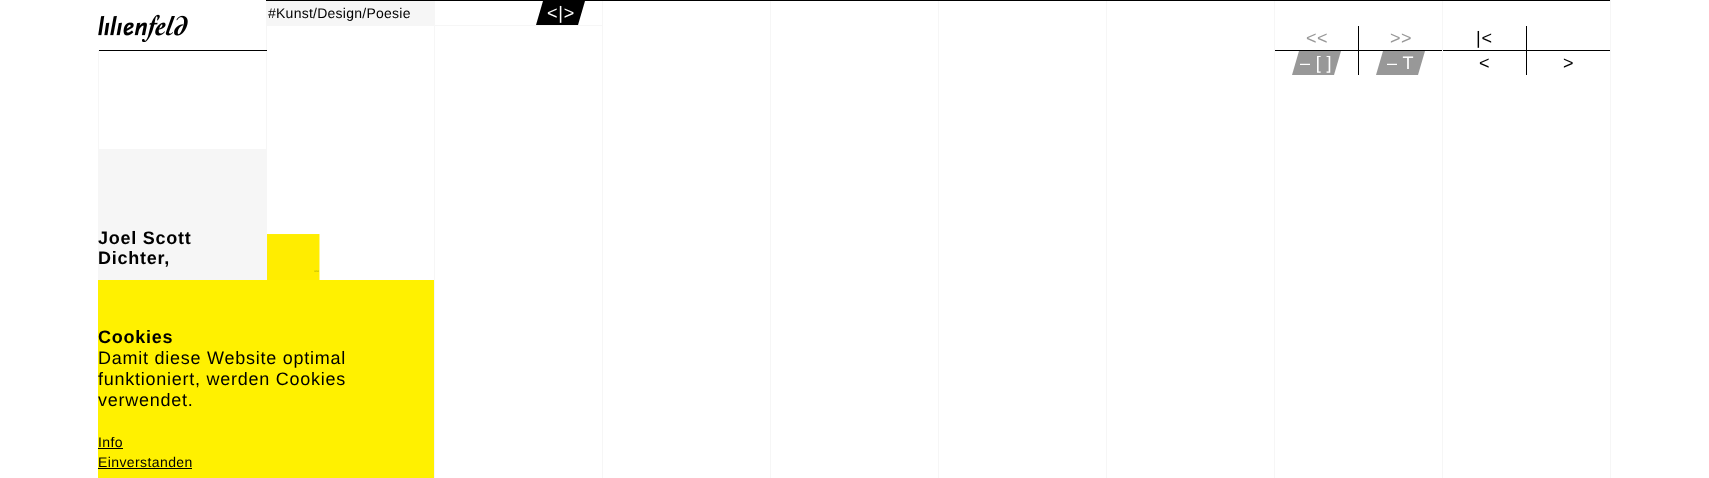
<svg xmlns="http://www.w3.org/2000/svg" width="1709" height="478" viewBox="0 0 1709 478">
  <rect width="100%" height="100%" fill="#ffffff"/>
  <image x="98" y="0" width="1513" height="75" href="img1.png"/>
  <image x="98" y="0" width="97" height="14" href="img2.png"/>
  <image x="98" y="14" width="97" height="36" href="img3.png"/>
  <rect x="266" y="0" width="1344" height="1" fill="#000000"/>
  <rect x="267" y="1" width="167" height="25" fill="#f6f6f6"/>
  <text x="268" y="18" font-family="Liberation Sans" font-size="14" letter-spacing="0.25" fill="#000000">#Kunst/Design/Poesie</text>
  <path d="M578 25H536L543 1H585Z" fill="#000000"/>
  <rect x="434" y="25" width="168" height="1" fill="#f6f6f6"/>
  <text x="547" y="19" font-family="Liberation Sans" font-size="18" letter-spacing="0.75" fill="#ffffff">&lt;|&gt;</text>
  <rect x="98" y="50" width="169" height="1" fill="#000000"/>
  <rect x="98" y="50" width="1" height="1" fill="#f6f6f6"/>
  <rect x="1358" y="26" width="1" height="49" fill="#000000"/>
  <rect x="1275" y="50" width="167" height="1" fill="#000000"/>
  <text x="1306" y="44" font-family="Liberation Sans" font-size="18" letter-spacing="0.4" fill="#989898">&lt;&lt;</text>
  <text x="1390" y="44" font-family="Liberation Sans" font-size="18" letter-spacing="0.4" fill="#989898">&gt;&gt;</text>
  <path d="M1334 75H1292L1299 51H1341Z" fill="#989898"/>
  <text x="1300" y="69" font-family="Liberation Sans" font-size="18" letter-spacing="0.4" fill="#ffffff">– [ ]</text>
  <path d="M1418 75H1376L1383 51H1425Z" fill="#989898"/>
  <text x="1387" y="69" font-family="Liberation Sans" font-size="18" letter-spacing="0.4" fill="#ffffff">– T</text>
  <rect x="1526" y="26" width="1" height="49" fill="#000000"/>
  <rect x="1443" y="50" width="167" height="1" fill="#000000"/>
  <text x="1476" y="44" font-family="Liberation Sans" font-size="18" letter-spacing="0.75" fill="#000000">|&lt;</text>
  <text x="1479" y="69" font-family="Liberation Sans" font-size="18" letter-spacing="0.75" fill="#000000">&lt;</text>
  <text x="1563" y="69" font-family="Liberation Sans" font-size="18" letter-spacing="0.75" fill="#000000">&gt;</text>
  <image x="98" y="75" width="1513" height="403" href="img4.png"/>
  <rect x="99" y="149" width="167" height="131" fill="#f6f6f6"/>
  <text x="98" y="244" font-family="Liberation Sans" font-size="18" font-weight="bold" letter-spacing="0.75" fill="#000000">Joel Scott</text>
  <text x="98" y="264" font-family="Liberation Sans" font-size="18" font-weight="bold" letter-spacing="0.75" fill="#000000">Dichter,</text>
  <image x="267" y="234" width="53" height="46" href="img5.png"/>
  <rect x="98" y="280" width="336" height="198" fill="#fff100"/>
  <text x="98" y="343" font-family="Liberation Sans" font-size="18" font-weight="bold" letter-spacing="0.75" fill="#000000">Cookies</text>
  <text x="98" y="364" font-family="Liberation Sans" font-size="18" letter-spacing="0.75" fill="#000000">Damit diese Website optimal</text>
  <text x="98" y="385" font-family="Liberation Sans" font-size="18" letter-spacing="0.75" fill="#000000">funktioniert, werden Cookies</text>
  <text x="98" y="406" font-family="Liberation Sans" font-size="18" letter-spacing="0.75" fill="#000000">verwendet.</text>
  <text x="98" y="447" font-family="Liberation Sans" font-size="14" letter-spacing="0.4" fill="#000000">Info</text>
  <rect x="98" y="448" width="25" height="1" fill="#000000"/>
  <text x="98" y="467" font-family="Liberation Sans" font-size="14" letter-spacing="0.4" fill="#000000">Einverstanden</text>
  <rect x="98" y="468" width="94" height="1" fill="#000000"/>
</svg>
